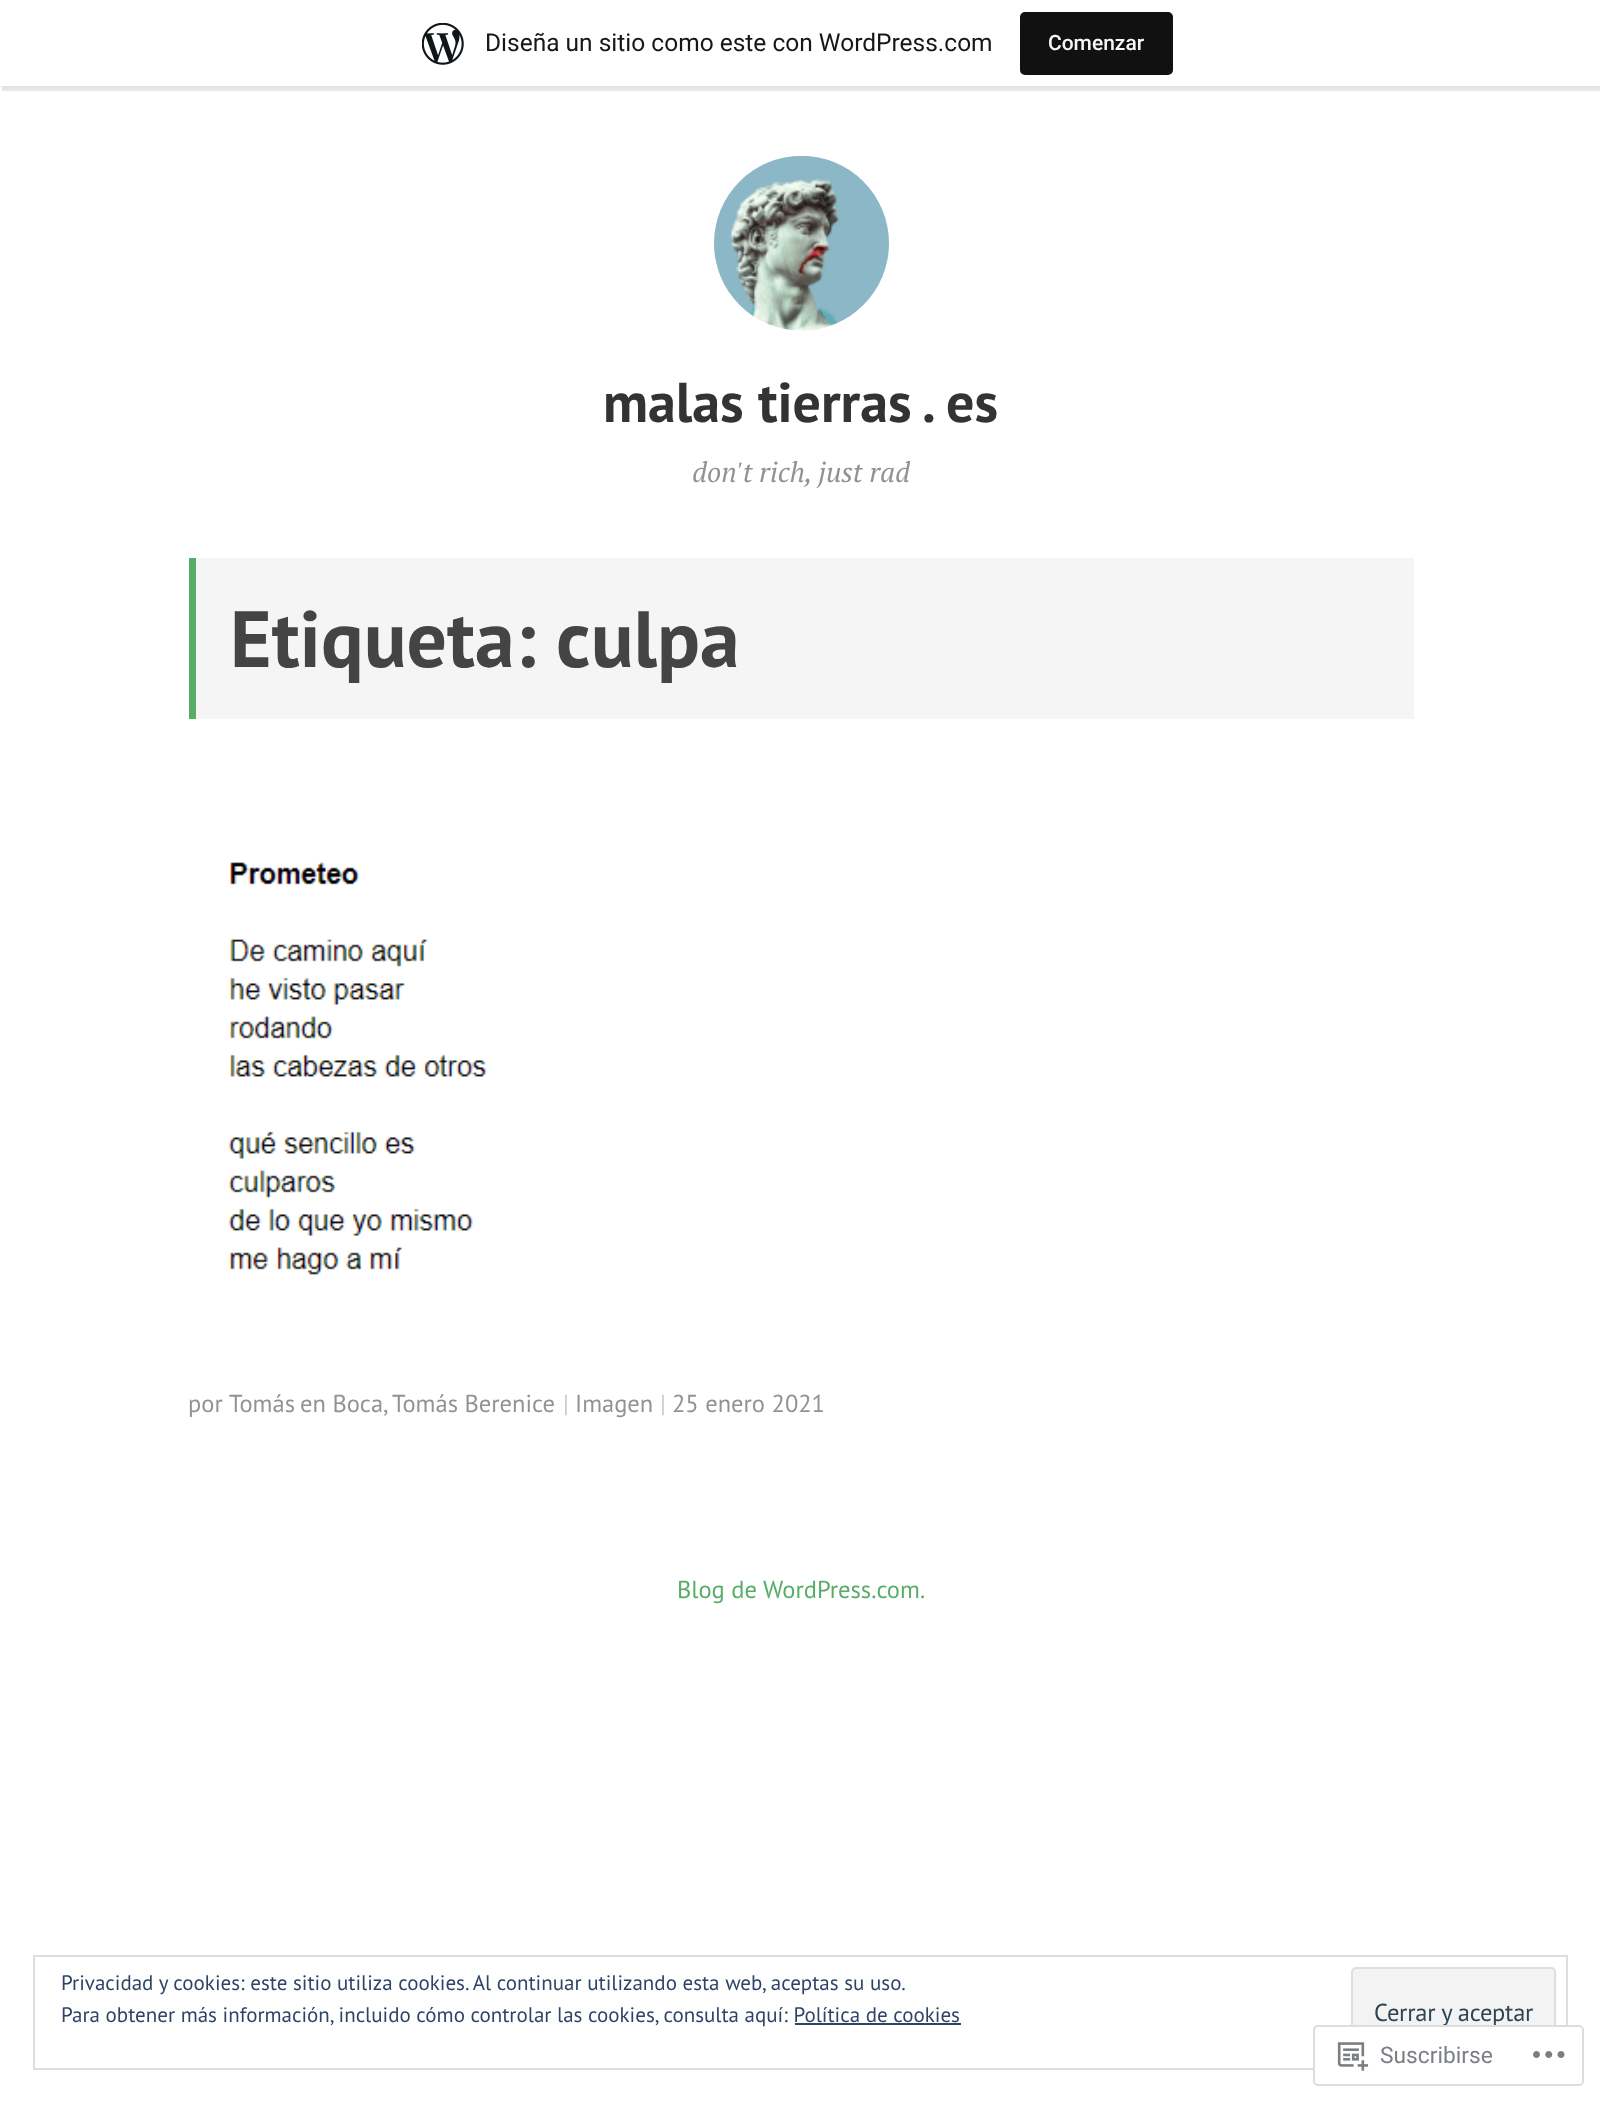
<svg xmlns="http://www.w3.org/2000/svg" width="1600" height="2103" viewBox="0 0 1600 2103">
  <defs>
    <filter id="blur1" x="-50%" y="-200%" width="200%" height="500%"><feGaussianBlur stdDeviation="2"/></filter>
  </defs>
  <rect width="100%" height="100%" fill="#ffffff"/>
  <rect x="0" y="2" width="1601" height="86" fill="#000000" fill-opacity="0.05" filter="url(#blur1)"/>
  <path d="M2 86V91H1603V5H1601V86Z" fill="#000000" fill-opacity="0.08"/>
  <rect x="0" y="0" width="1600" height="86" fill="#ffffff"/>
  <image x="422" y="23" width="42" height="42" href="img1.png"/>
  <text x="485" y="51" font-family="Roboto" font-size="24.5" fill="#171717">Diseña un sitio como este con WordPress.com</text>
  <rect x="1020" y="12" width="153" height="63" rx="5" fill="#111111"/>
  <text x="1048" y="50" font-family="Roboto" font-size="21" font-weight="500" fill="#f6f7f7">Comenzar</text>
  <image x="714" y="155" width="175" height="176" href="img2.png"/>
  <text x="603" y="422" font-family="PT Sans" font-size="56" font-weight="bold" fill="#333332">malas tierras . es</text>
  <text x="692" y="482" font-family="PT Serif" font-size="28" font-style="italic" fill="#92928f">don't rich, just rad</text>
  <rect x="196" y="558" width="1218" height="161" fill="#f5f5f5"/>
  <rect x="189" y="558" width="7" height="161" fill="#57ad68"/>
  <text x="230" y="667" font-family="PT Sans" font-size="79.75" font-weight="bold" fill="#444444">Etiqueta: culpa</text>
  <image x="228" y="862" width="259" height="413" href="img3.png"/>
  <text x="188" y="1412" font-family="PT Sans" font-size="24.5" fill="#92928f">por</text>
  <text x="229" y="1412" font-family="PT Sans" font-size="24.5" fill="#92928f">Tomás</text>
  <text x="300" y="1412" font-family="PT Sans" font-size="24.5" fill="#92928f">en Boca,</text>
  <text x="392" y="1412" font-family="PT Sans" font-size="24.5" fill="#92928f">Tomás Berenice</text>
  <text x="563" y="1412" font-family="PT Sans" font-size="24.5" fill="#cbcbcb">|</text>
  <text x="575" y="1412" font-family="PT Sans" font-size="24.5" fill="#92928f">Imagen</text>
  <text x="660" y="1412" font-family="PT Sans" font-size="24.5" fill="#cbcbcb">|</text>
  <text x="672" y="1412" font-family="PT Sans" font-size="24.5" fill="#92928f">25 enero 2021</text>
  <text x="677" y="1598" font-family="PT Sans" font-size="24.5" fill="#57ad68">Blog de WordPress.com.</text>
  <rect x="34" y="1956" width="1533" height="113" fill="none" stroke="#dedede" stroke-width="2"/>
  <text x="61" y="1990" font-family="PT Sans" font-size="21" fill="#2e4467">Privacidad y cookies: este sitio utiliza cookies. Al continuar utilizando esta web, aceptas su uso.</text>
  <text x="61" y="2022" font-family="PT Sans" font-size="21" fill="#2e4467">Para obtener más información, incluido cómo controlar las cookies, consulta aquí: Política de cookies</text>
  <rect x="1352" y="1968" width="203" height="89" rx="4" fill="#f3f3f3" stroke="#dedede" stroke-width="2"/>
  <text x="1374" y="2021" font-family="PT Sans" font-size="24.5" letter-spacing="-0.25" fill="#2e4453">Cerrar y aceptar</text>
  <rect x="795" y="2023" width="166" height="2" fill="#2e4467"/>
  <rect x="1313" y="2025" width="271" height="61" rx="5" fill="#ffffff" fill-opacity="0.98"/>
  <rect x="1314" y="2026" width="269" height="59" rx="4" fill="none" stroke="#dcdcde" stroke-opacity="0.98" stroke-width="2"/>
  <image x="1337" y="2042" width="32" height="29" href="img4.png"/>
  <text x="1380" y="2063" font-family="Roboto" font-size="22.75" fill="#7b7f84">Suscribirse</text>
  <image x="1533" y="2051" width="32" height="7" href="img5.png"/>
</svg>
